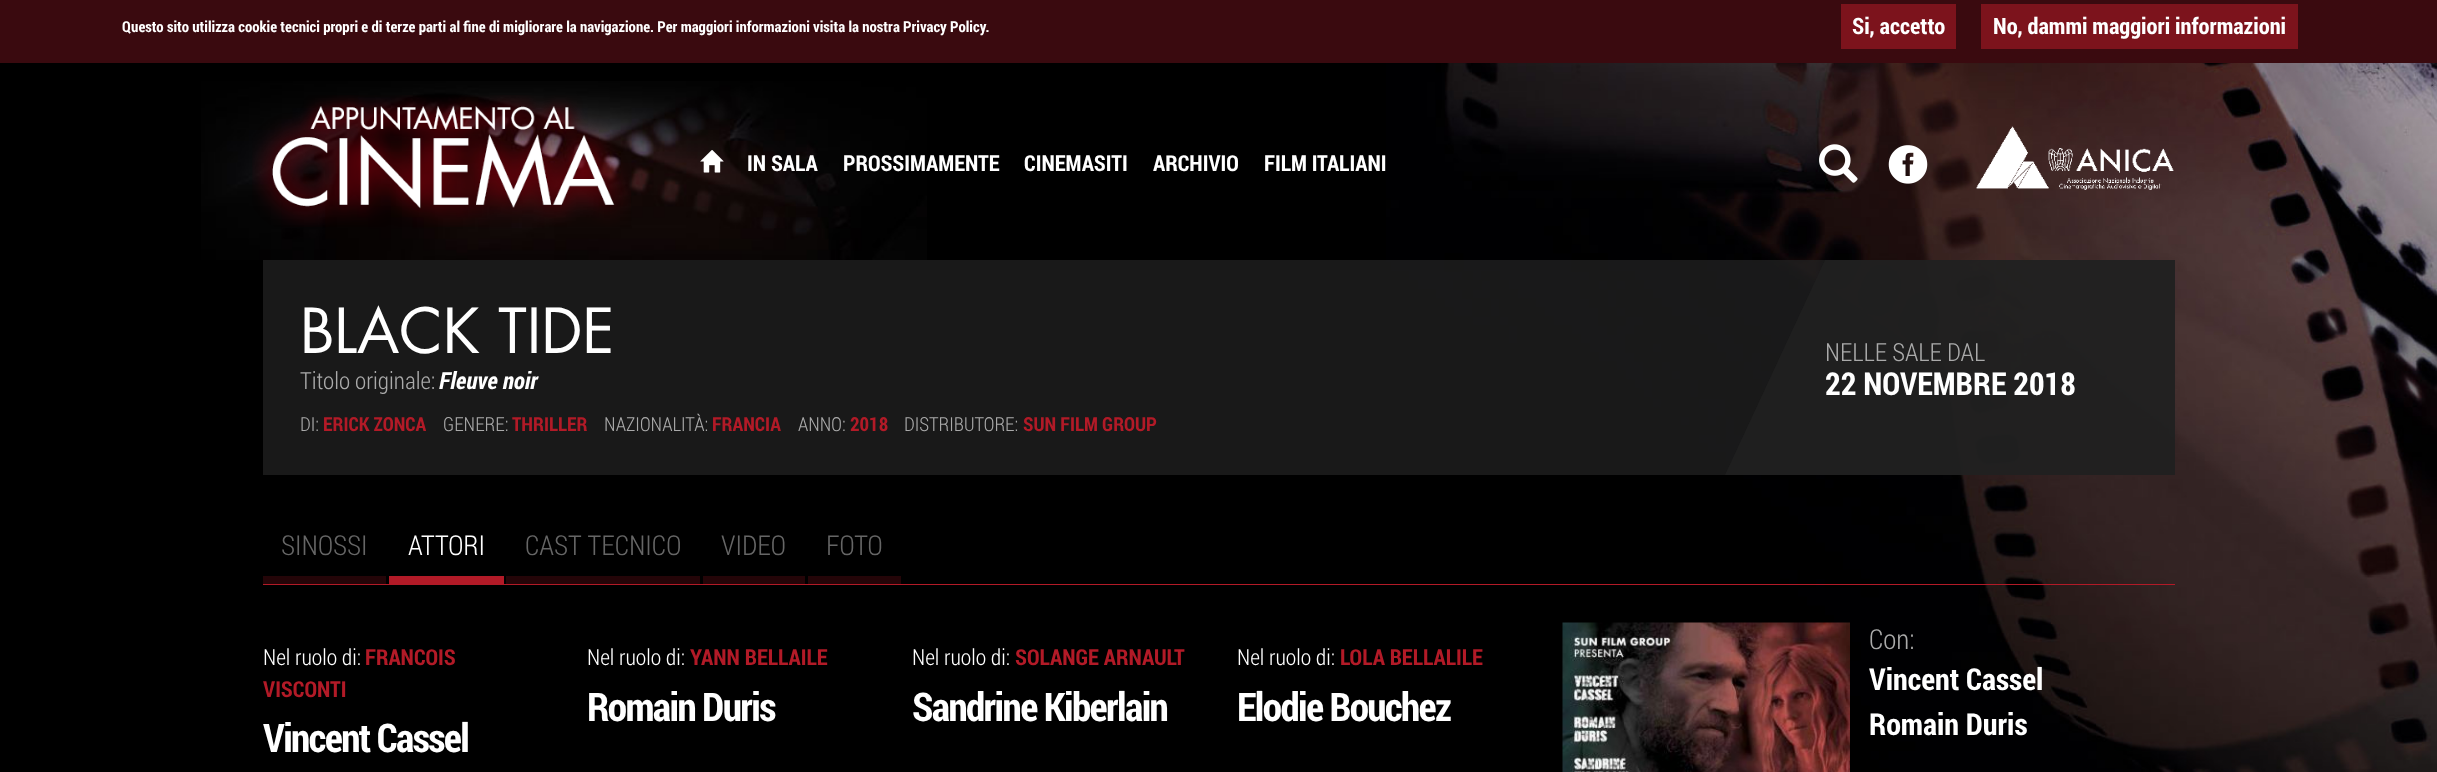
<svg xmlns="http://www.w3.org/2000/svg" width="2437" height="772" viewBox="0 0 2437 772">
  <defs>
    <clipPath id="clip1"><rect x="263" y="260" width="1912" height="215"/></clipPath>
  </defs>
  <rect width="100%" height="100%" fill="#000000"/>
  <image x="1386" y="63" width="1051" height="709" href="img1.png"/>
  <rect x="0" y="0" width="2437" height="63" fill="#3a0a0f"/>
  <text x="122" y="32" font-family="Roboto Condensed" font-size="15" font-weight="bold" fill="#ffffff">Questo sito utilizza cookie tecnici propri e di terze parti al fine di migliorare la navigazione. Per maggiori informazioni visita la nostra Privacy Policy.</text>
  <rect x="1841" y="4" width="115" height="45" fill="#7c131c"/>
  <text x="1852" y="34" font-family="Roboto Condensed" font-size="22.5" font-weight="bold" fill="#ffffff">Si, accetto</text>
  <rect x="1981" y="4" width="317" height="45" fill="#7c131c"/>
  <text x="1993" y="34" font-family="Roboto Condensed" font-size="22.5" font-weight="bold" fill="#ffffff">No, dammi maggiori informazioni</text>
  <image x="201" y="81" width="726" height="179" href="img2.png"/>
  <image x="252" y="95" width="379" height="132" href="img3.png"/>
  <image x="1976" y="126" width="198" height="64" href="img4.png"/>
  <image x="700" y="150" width="24" height="23" href="img5.png"/>
  <text x="747" y="171" font-family="Roboto Condensed" font-size="22" font-weight="bold" fill="#ffffff">IN SALA</text>
  <text x="843" y="171" font-family="Roboto Condensed" font-size="22" font-weight="bold" fill="#ffffff">PROSSIMAMENTE</text>
  <text x="1024" y="171" font-family="Roboto Condensed" font-size="22" font-weight="bold" fill="#ffffff">CINEMASITI</text>
  <text x="1153" y="171" font-family="Roboto Condensed" font-size="22" font-weight="bold" fill="#ffffff">ARCHIVIO</text>
  <text x="1264" y="171" font-family="Roboto Condensed" font-size="22" font-weight="bold" fill="#ffffff">FILM ITALIANI</text>
  <image x="1819" y="144" width="39" height="39" href="img6.png"/>
  <image x="1888" y="145" width="40" height="39" href="img7.png"/>
  <rect x="263" y="260" width="1912" height="215" fill="#212121" fill-opacity="0.5"/>
  <rect x="263" y="260" width="1912" height="215" fill="#212121" fill-opacity="0.5"/>
  <text x="300" y="353" font-family="Futura" font-size="60.5" fill="#ffffff">BLACK TIDE</text>
  <text x="300" y="389" font-family="Roboto Condensed" font-size="23.5" font-weight="300" fill="#aaaaaa">Titolo originale:</text>
  <text x="439" y="389" font-family="Roboto Condensed" font-size="23.5" font-weight="bold" font-style="italic" fill="#ffffff">Fleuve noir</text>
  <g clip-path="url(#clip1)">
    <path d="M1825 260H2315L2215 475H1725Z" fill="#212121" fill-opacity="0.8"/>
  </g>
  <text x="1825" y="361" font-family="Roboto Condensed" font-size="25" font-weight="300" fill="#aaaaaa">NELLE SALE DAL</text>
  <text x="1825" y="395" font-family="Roboto Condensed" font-size="31.5" font-weight="bold" fill="#ffffff">22 NOVEMBRE 2018</text>
  <text x="300" y="431" font-family="Roboto Condensed" font-size="19.25" font-weight="300" fill="#aaaaaa">DI:</text>
  <text x="323" y="431" font-family="Roboto Condensed" font-size="19.25" font-weight="bold" fill="#b21a27">ERICK ZONCA</text>
  <text x="443" y="431" font-family="Roboto Condensed" font-size="19.25" font-weight="300" fill="#aaaaaa">GENERE:</text>
  <text x="512" y="431" font-family="Roboto Condensed" font-size="19.25" font-weight="bold" fill="#b21a27">THRILLER</text>
  <text x="604" y="431" font-family="Roboto Condensed" font-size="19.25" font-weight="300" fill="#aaaaaa">NAZIONALITÀ:</text>
  <text x="712" y="431" font-family="Roboto Condensed" font-size="19.25" font-weight="bold" fill="#b21a27">FRANCIA</text>
  <text x="798" y="431" font-family="Roboto Condensed" font-size="19.25" font-weight="300" fill="#aaaaaa">ANNO:</text>
  <text x="850" y="431" font-family="Roboto Condensed" font-size="19.25" font-weight="bold" fill="#b21a27">2018</text>
  <text x="904" y="431" font-family="Roboto Condensed" font-size="19.25" font-weight="300" fill="#aaaaaa">DISTRIBUTORE:</text>
  <text x="1023" y="431" font-family="Roboto Condensed" font-size="19.25" font-weight="bold" fill="#b21a27">SUN FILM GROUP</text>
  <rect x="263" y="584" width="1912" height="1" fill="#b21a27"/>
  <rect x="263" y="576" width="123" height="8" fill="#240508"/>
  <text x="281" y="555" font-family="Roboto Condensed" font-size="27.5" font-weight="300" fill="#666666">SINOSSI</text>
  <rect x="389" y="576" width="115" height="8" fill="#b21a27"/>
  <text x="408" y="555" font-family="Roboto Condensed" font-size="27.5" font-weight="300" fill="#ffffff">ATTORI</text>
  <rect x="506" y="576" width="194" height="8" fill="#240508"/>
  <text x="525" y="555" font-family="Roboto Condensed" font-size="27.5" font-weight="300" fill="#666666">CAST TECNICO</text>
  <rect x="703" y="576" width="102" height="8" fill="#240508"/>
  <text x="721" y="555" font-family="Roboto Condensed" font-size="27.5" font-weight="300" fill="#666666">VIDEO</text>
  <rect x="808" y="576" width="93" height="8" fill="#240508"/>
  <text x="826" y="555" font-family="Roboto Condensed" font-size="27.5" font-weight="300" fill="#666666">FOTO</text>
  <text x="263" y="665" font-family="Roboto Condensed" font-size="22" font-weight="300" fill="#ffffff">Nel ruolo di:</text>
  <text x="365" y="665" font-family="Roboto Condensed" font-size="22" font-weight="bold" fill="#b21a27">FRANCOIS</text>
  <text x="263" y="697" font-family="Roboto Condensed" font-size="22" font-weight="bold" fill="#b21a27">VISCONTI</text>
  <text x="263" y="752" font-family="Roboto Condensed" font-size="39.5" font-weight="bold" letter-spacing="-1.6" fill="#ffffff">Vincent Cassel</text>
  <text x="587" y="665" font-family="Roboto Condensed" font-size="22" font-weight="300" fill="#ffffff">Nel ruolo di:</text>
  <text x="690" y="665" font-family="Roboto Condensed" font-size="22" font-weight="bold" fill="#b21a27">YANN BELLAILE</text>
  <text x="587" y="721" font-family="Roboto Condensed" font-size="39.5" font-weight="bold" letter-spacing="-1.6" fill="#ffffff">Romain Duris</text>
  <text x="912" y="665" font-family="Roboto Condensed" font-size="22" font-weight="300" fill="#ffffff">Nel ruolo di:</text>
  <text x="1015" y="665" font-family="Roboto Condensed" font-size="22" font-weight="bold" fill="#b21a27">SOLANGE ARNAULT</text>
  <text x="912" y="721" font-family="Roboto Condensed" font-size="39.5" font-weight="bold" letter-spacing="-1.6" fill="#ffffff">Sandrine Kiberlain</text>
  <text x="1237" y="665" font-family="Roboto Condensed" font-size="22" font-weight="300" fill="#ffffff">Nel ruolo di:</text>
  <text x="1340" y="665" font-family="Roboto Condensed" font-size="22" font-weight="bold" fill="#b21a27">LOLA BELLALILE</text>
  <text x="1237" y="721" font-family="Roboto Condensed" font-size="39.5" font-weight="bold" letter-spacing="-1.6" fill="#ffffff">Elodie Bouchez</text>
  <image x="1562" y="622" width="288" height="150" href="img8.png"/>
  <text x="1869" y="649" font-family="Roboto Condensed" font-size="27.5" font-weight="300" fill="#aaaaaa">Con:</text>
  <text x="1869" y="690" font-family="Roboto Condensed" font-size="30.25" font-weight="bold" fill="#ffffff">Vincent Cassel</text>
  <text x="1869" y="735" font-family="Roboto Condensed" font-size="30.25" font-weight="bold" fill="#ffffff">Romain Duris</text>
</svg>
